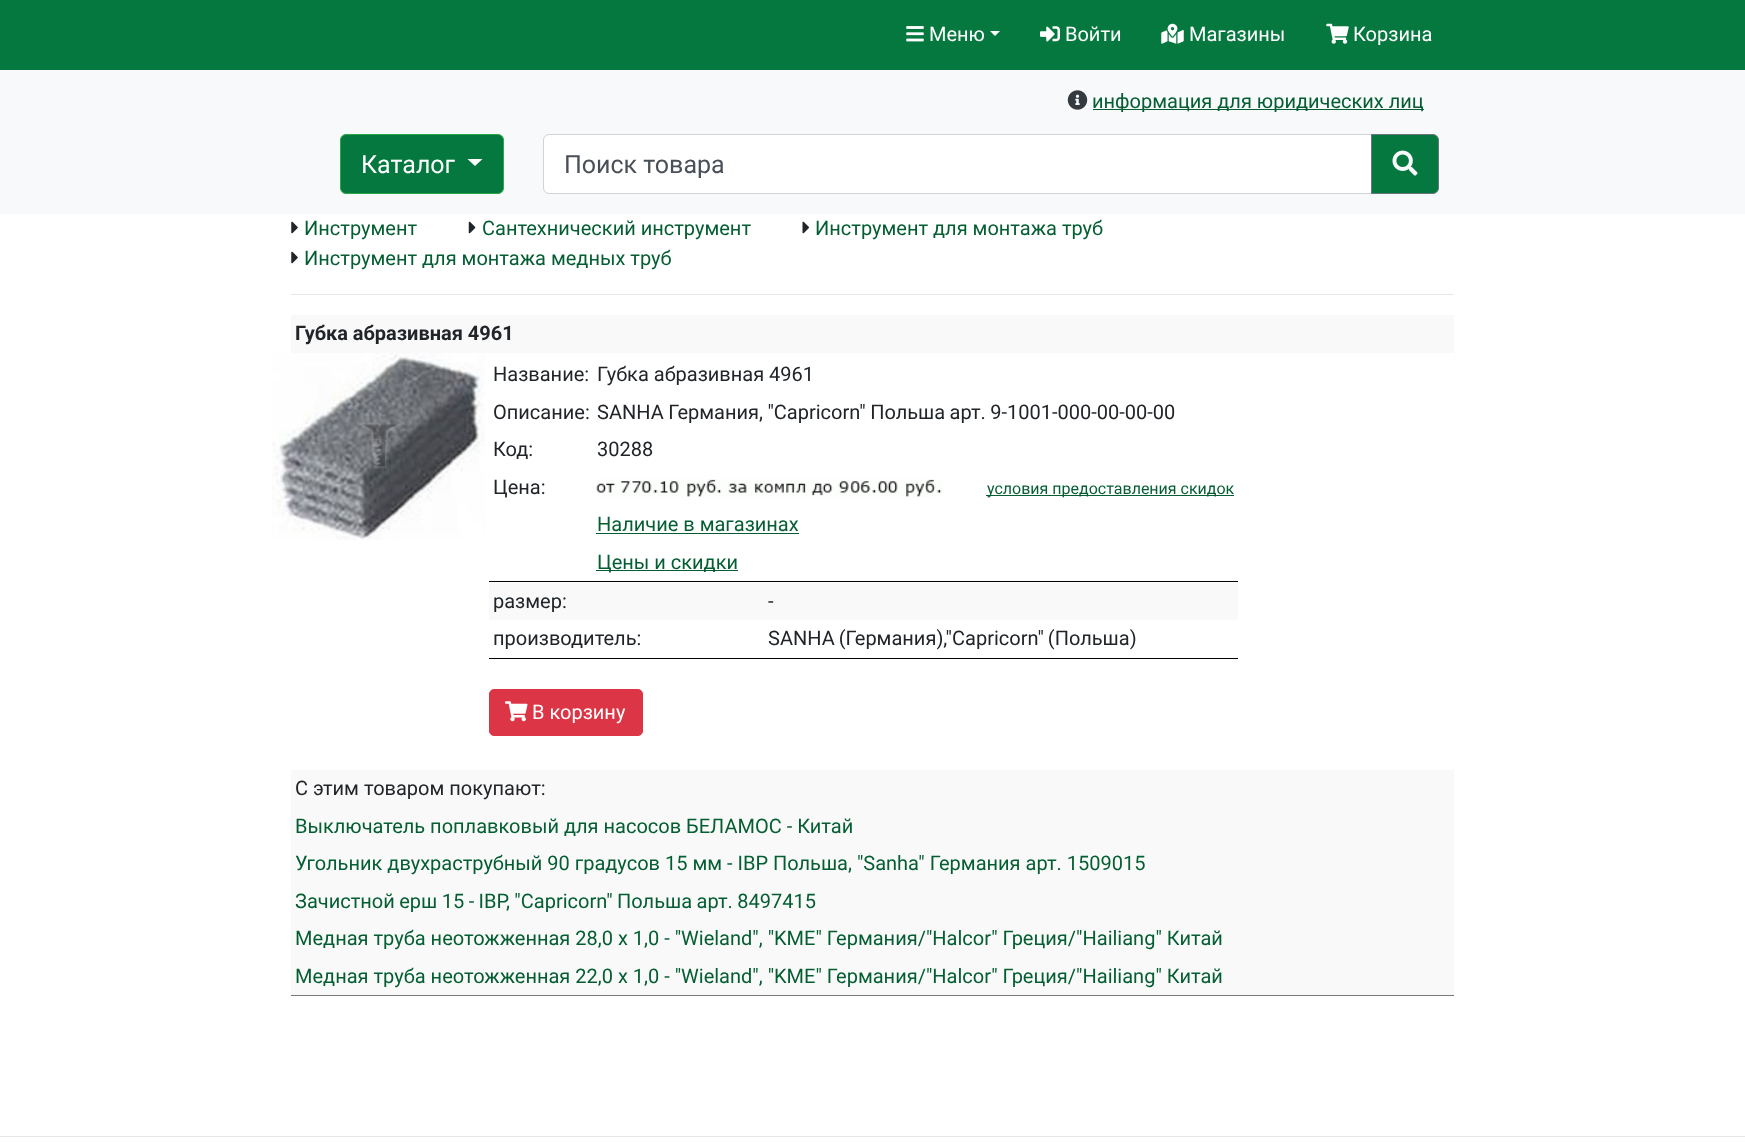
<svg xmlns="http://www.w3.org/2000/svg" width="1745" height="1146" viewBox="0 0 1745 1146">
  <rect width="100%" height="100%" fill="#ffffff"/>
  <rect x="0" y="0" width="1745" height="70" fill="#05783f"/>
  <image x="906" y="26" width="18" height="16" href="img1.png"/>
  <text x="929" y="41" font-family="Roboto" font-size="20" fill="#ffffff">Меню</text>
  <path d="M990 31H1000L995 36Z" fill="#ffffff"/>
  <image x="1040" y="26" width="20" height="16" href="img2.png"/>
  <text x="1065" y="41" font-family="Roboto" font-size="20" fill="#ffffff">Войти</text>
  <image x="1161" y="23" width="23" height="21" href="img3.png"/>
  <text x="1189" y="41" font-family="Roboto" font-size="20" fill="#ffffff">Магазины</text>
  <image x="1326" y="23" width="23" height="21" href="img4.png"/>
  <text x="1353" y="41" font-family="Roboto" font-size="20" fill="#ffffff">Корзина</text>
  <rect x="0" y="70" width="1745" height="144" fill="#f8f9fa"/>
  <image x="1067" y="90" width="21" height="20" href="img5.png"/>
  <rect x="1093" y="109" width="331" height="1" fill="#045e32"/>
  <text x="1092" y="108" font-family="Roboto" font-size="20" fill="#045e32">информация для юридических лиц</text>
  <rect x="340.5" y="134.5" width="163" height="59" rx="5.5" fill="#05783f" stroke="#28a745"/>
  <text x="361" y="173" font-family="Roboto" font-size="25" fill="#ffffff">Каталог</text>
  <path d="M467.5 159H482.5L475 166Z" fill="#ffffff"/>
  <path d="M549 135H1371V193H549C546 193 544 191 544 188V140C544 137 546 135 549 135Z" fill="#ffffff"/>
  <path d="M549 134.5H1372.5V193.5H549C546 193.5 543.5 191 543.5 188V140C543.5 137 546 134.5 549 134.5Z" fill="none" stroke="#ced4da"/>
  <text x="564" y="173" font-family="Roboto" font-size="25" fill="#495057">Поиск товара</text>
  <path d="M1371.5 134.5H1433C1436 134.5 1438.5 137 1438.5 140V188C1438.5 191 1436 193.5 1433 193.5H1371.5Z" fill="#05783f" stroke="#6c757d"/>
  <image x="1392" y="150" width="26" height="26" href="img6.png"/>
  <image x="291" y="221" width="7" height="13" href="img7.png"/>
  <text x="304" y="235" font-family="Roboto" font-size="20" fill="#045e32">Инструмент</text>
  <image x="468" y="221" width="8" height="13" href="img8.png"/>
  <text x="482" y="235" font-family="Roboto" font-size="20" fill="#045e32">Сантехнический инструмент</text>
  <image x="802" y="221" width="8" height="13" href="img9.png"/>
  <text x="815" y="235" font-family="Roboto" font-size="20" fill="#045e32">Инструмент для монтажа труб</text>
  <image x="291" y="251" width="7" height="13" href="img7.png"/>
  <text x="304" y="265" font-family="Roboto" font-size="20" fill="#045e32">Инструмент для монтажа медных труб</text>
  <rect x="291" y="294" width="1163" height="1" fill="#e6e6e6"/>
  <rect x="291" y="315" width="1163" height="38" fill="#f9f9f9"/>
  <text x="295" y="340" font-family="Roboto" font-size="20" font-weight="bold" fill="#212529">Губка абразивная 4961</text>
  <image x="272" y="353" width="213" height="187" href="img10.png"/>
  <text x="493" y="381" font-family="Roboto" font-size="20" fill="#212529">Название:</text>
  <text x="597" y="381" font-family="Roboto" font-size="20" fill="#212529">Губка абразивная 4961</text>
  <text x="493" y="419" font-family="Roboto" font-size="20" fill="#212529">Описание:</text>
  <text x="597" y="419" word-spacing="-0.5" font-family="Roboto" font-size="20" fill="#212529">SANHA Германия, "Capricorn" Польша арт. 9-1001-000-00-00-00</text>
  <text x="493" y="456" font-family="Roboto" font-size="20" fill="#212529">Код:</text>
  <text x="597" y="456" font-family="Roboto" font-size="20" fill="#212529">30288</text>
  <text x="493" y="494" font-family="Roboto" font-size="20" fill="#212529">Цена:</text>
  <image x="596" y="479" width="346" height="18" href="img11.png"/>
  <rect x="986" y="495" width="248" height="1" fill="#045e32"/>
  <text x="987" y="494" font-family="Roboto" font-size="16" fill="#045e32">условия предоставления скидок</text>
  <text x="597" y="531" font-family="Roboto" font-size="20" fill="#045e32">Наличие в магазинах</text>
  <rect x="596" y="533" width="203" height="1" fill="#045e32"/>
  <rect x="596" y="570" width="142" height="1" fill="#045e32"/>
  <text x="597" y="569" font-family="Roboto" font-size="20" fill="#045e32">Цены и скидки</text>
  <rect x="489" y="581" width="749" height="1" fill="#000000"/>
  <rect x="489" y="658" width="749" height="1" fill="#000000"/>
  <rect x="489" y="583" width="749" height="37" fill="#f9f9f9"/>
  <text x="493" y="608" font-family="Roboto" font-size="20" fill="#212529">размер:</text>
  <text x="768" y="608" font-family="Roboto" font-size="20" fill="#212529">-</text>
  <text x="493" y="645" font-family="Roboto" font-size="20" fill="#212529">производитель:</text>
  <text x="768" y="645" word-spacing="-1" font-family="Roboto" font-size="20" fill="#212529">SANHA (Германия),"Capricorn" (Польша)</text>
  <rect x="489.5" y="689.5" width="153" height="46" rx="4.5" fill="#dc3545" stroke="#dc3545"/>
  <image x="505" y="701" width="23" height="21" href="img12.png"/>
  <text x="532" y="719" font-family="Roboto" font-size="20" fill="#ffffff">В корзину</text>
  <rect x="291" y="770" width="1163" height="225" fill="#f9f9f9"/>
  <text x="295" y="795" font-family="Roboto" font-size="20" fill="#212529">С этим товаром покупают:</text>
  <rect x="291" y="995" width="1163" height="1" fill="#777777"/>
  <text x="295" y="833" font-family="Roboto" font-size="20" fill="#045e32">Выключатель поплавковый для насосов БЕЛАМОС - Китай</text>
  <text x="295" y="870" font-family="Roboto" font-size="20" fill="#045e32">Угольник двухраструбный 90 градусов 15 мм - IBP Польша, "Sanha" Германия арт. 1509015</text>
  <text x="295" y="908" word-spacing="-0.5" font-family="Roboto" font-size="20" fill="#045e32">Зачистной ерш 15 - IBP, "Capricorn" Польша арт. 8497415</text>
  <text x="295" y="945" font-family="Roboto" font-size="20" fill="#045e32">Медная труба неотожженная 28,0 х 1,0 - "Wieland", "KME" Германия/"Halcor" Греция/"Hailiang" Китай</text>
  <text x="295" y="983" font-family="Roboto" font-size="20" fill="#045e32">Медная труба неотожженная 22,0 х 1,0 - "Wieland", "KME" Германия/"Halcor" Греция/"Hailiang" Китай</text>
  <rect x="0" y="1136" width="1745" height="1" fill="#e6e6e6"/>
</svg>
